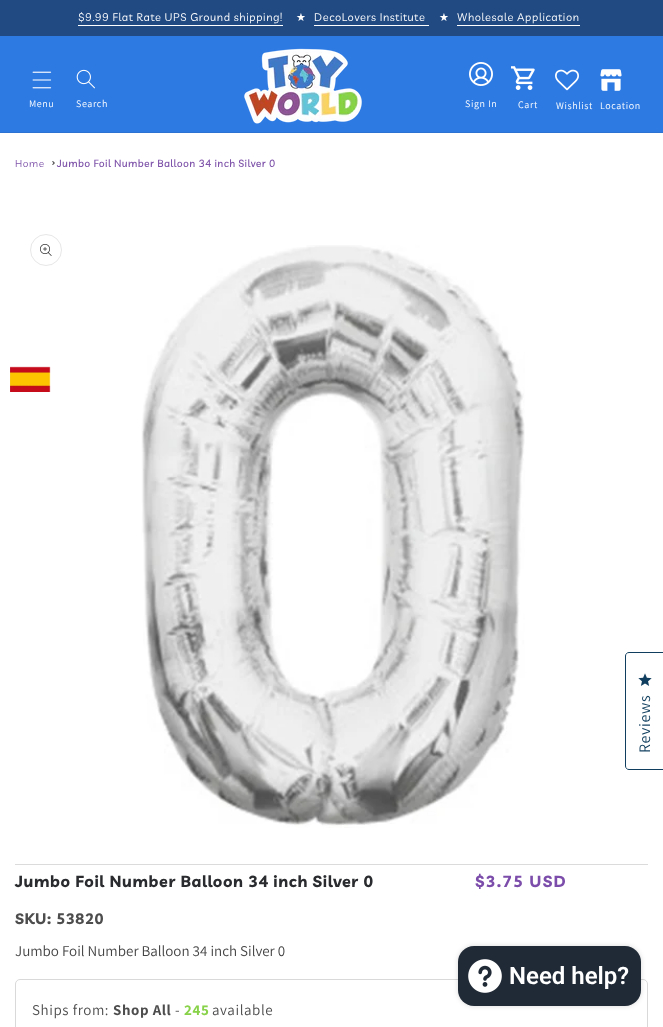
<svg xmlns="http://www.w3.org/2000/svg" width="663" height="1027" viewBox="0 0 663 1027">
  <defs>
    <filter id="blur1" x="-50%" y="-200%" width="200%" height="500%"><feGaussianBlur stdDeviation="2.5"/></filter>
  </defs>
  <rect width="100%" height="100%" fill="#ffffff"/>
  <rect x="0" y="0" width="663" height="36" fill="#214a83"/>
  <text x="78" y="21" font-family="Livvic" font-size="11" letter-spacing="0.6" fill="#ffffff">$9.99 Flat Rate UPS Ground shipping!</text>
  <rect x="78" y="25" width="205" height="1" fill="#ffffff"/>
  <text x="296" y="21" font-family="DejaVu Sans" font-size="11" letter-spacing="0.6" fill="#ffffff">★</text>
  <text x="314" y="21" font-family="Livvic" font-size="11" letter-spacing="0.6" fill="#ffffff">DecoLovers Institute</text>
  <rect x="314" y="25" width="115" height="1" fill="#ffffff"/>
  <text x="439" y="21" font-family="DejaVu Sans" font-size="11" letter-spacing="0.6" fill="#ffffff">★</text>
  <text x="457" y="21" font-family="Livvic" font-size="11" letter-spacing="0.6" fill="#ffffff">Wholesale Application</text>
  <rect x="457" y="25" width="123" height="1" fill="#ffffff"/>
  <rect x="0" y="36" width="663" height="96" fill="#2d7ae3"/>
  <image x="10" y="366" width="41" height="26" href="img1.png"/>
  <rect x="0" y="132" width="663" height="1" fill="#2b72d2"/>
  <image x="32" y="71" width="20" height="18" href="img2.png"/>
  <text x="29" y="107" font-family="Assistant" font-size="10" letter-spacing="0.6" fill="#ffffff">Menu</text>
  <image x="76" y="69" width="19" height="20" href="img3.png"/>
  <text x="76" y="107" font-family="Assistant" font-size="10" letter-spacing="0.6" fill="#ffffff">Search</text>
  <image x="244" y="48" width="118" height="76" href="img4.png"/>
  <image x="469" y="62" width="24" height="24" href="img5.png"/>
  <text x="465" y="107" font-family="Assistant" font-size="10" letter-spacing="0.6" fill="#ffffff">Sign In</text>
  <image x="511" y="66" width="24" height="24" href="img6.png"/>
  <text x="518" y="108" font-family="Assistant" font-size="10" letter-spacing="0.6" fill="#ffffff">Cart</text>
  <image x="555" y="69" width="24" height="22" href="img7.png"/>
  <text x="556" y="109" font-family="Assistant" font-size="10" letter-spacing="0.6" fill="#ffffff">Wishlist</text>
  <image x="600" y="69" width="22" height="22" href="img8.png"/>
  <text x="600" y="109" font-family="Assistant" font-size="10" letter-spacing="0.6" fill="#ffffff">Location</text>
  <text x="15" y="167" font-family="Livvic" font-size="10" letter-spacing="0.6" fill="#7f54aa">Home</text>
  <path d="M53 161L55 163H53.5L52 161.5ZM55 163L53 165L52 164.5L53.5 163Z" fill="#4d4d4d"/>
  <text x="57" y="167" font-family="Livvic" font-size="10" font-weight="bold" letter-spacing="0.6" fill="#7f54aa">Jumbo Foil Number Balloon 34 inch Silver 0</text>
  <rect x="15" y="864" width="633" height="1" fill="#dbdbdb"/>
  <circle cx="46" cy="250" r="15.5" fill="none" stroke="#e7e7e7"/>
  <image x="40" y="244" width="12" height="12" href="img9.png"/>
  <image x="141" y="245" width="384" height="583" href="img10.png"/>
  <text x="15" y="887" font-family="'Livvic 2'" font-size="16" font-weight="bold" letter-spacing="0.6" fill="#292b2e">Jumbo Foil Number Balloon 34 inch Silver 0</text>
  <text x="475" y="887" font-family="'Livvic 2'" font-size="16" font-weight="bold" letter-spacing="1.25" fill="#7c4daa">$3.75 USD</text>
  <text x="15" y="924" font-family="'Livvic 2'" font-size="15" font-weight="bold" letter-spacing="0.6" fill="#4d4d4d">SKU: 53820</text>
  <text x="15" y="956" font-family="Assistant" font-size="15" fill="#454545">Jumbo Foil Number Balloon 34 inch Silver 0</text>
  <rect x="15.5" y="979.5" width="632" height="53" rx="4.5" fill="none" stroke="#d9d9d9"/>
  <text x="32" y="1015" font-family="Assistant" font-size="15" letter-spacing="0.6" fill="#4d4d4d">Ships from:</text>
  <text x="113" y="1015" font-family="Assistant" font-size="15" font-weight="bold" letter-spacing="0.6" fill="#4d4d4d">Shop All</text>
  <text x="175" y="1015" font-family="Assistant" font-size="15" letter-spacing="0.6" fill="#4d4d4d">-</text>
  <text x="184" y="1015" font-family="Assistant" font-size="15" font-weight="bold" letter-spacing="0.6" fill="#88d249">245</text>
  <text x="212" y="1015" font-family="Assistant" font-size="15" letter-spacing="0.6" fill="#4d4d4d">available</text>
  <path d="M629 652.5H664.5V769.5H629C627 769.5 625.5 768 625.5 766V656C625.5 654 627 652.5 629 652.5Z" fill="none" stroke="#0f3e5e"/>
  <image x="638" y="673" width="14" height="13" href="img11.png"/>
  <text x="650" y="753" transform="rotate(-89.9 650 753)" font-family="Assistant" font-size="16" letter-spacing="0.6" fill="#0f3e5e">Reviews</text>
  <rect x="458" y="946" width="183" height="60" rx="16" fill="#000000" fill-opacity="0.15" filter="url(#blur1)"/>
  <rect x="458" y="946" width="183" height="60" rx="16" fill="#202a36"/>
  <image x="468" y="959" width="34" height="34" href="img12.png"/>
  <text x="509" y="984" font-family="Roboto" font-size="24" font-weight="600" fill="#ffffff">Need help?</text>
</svg>
